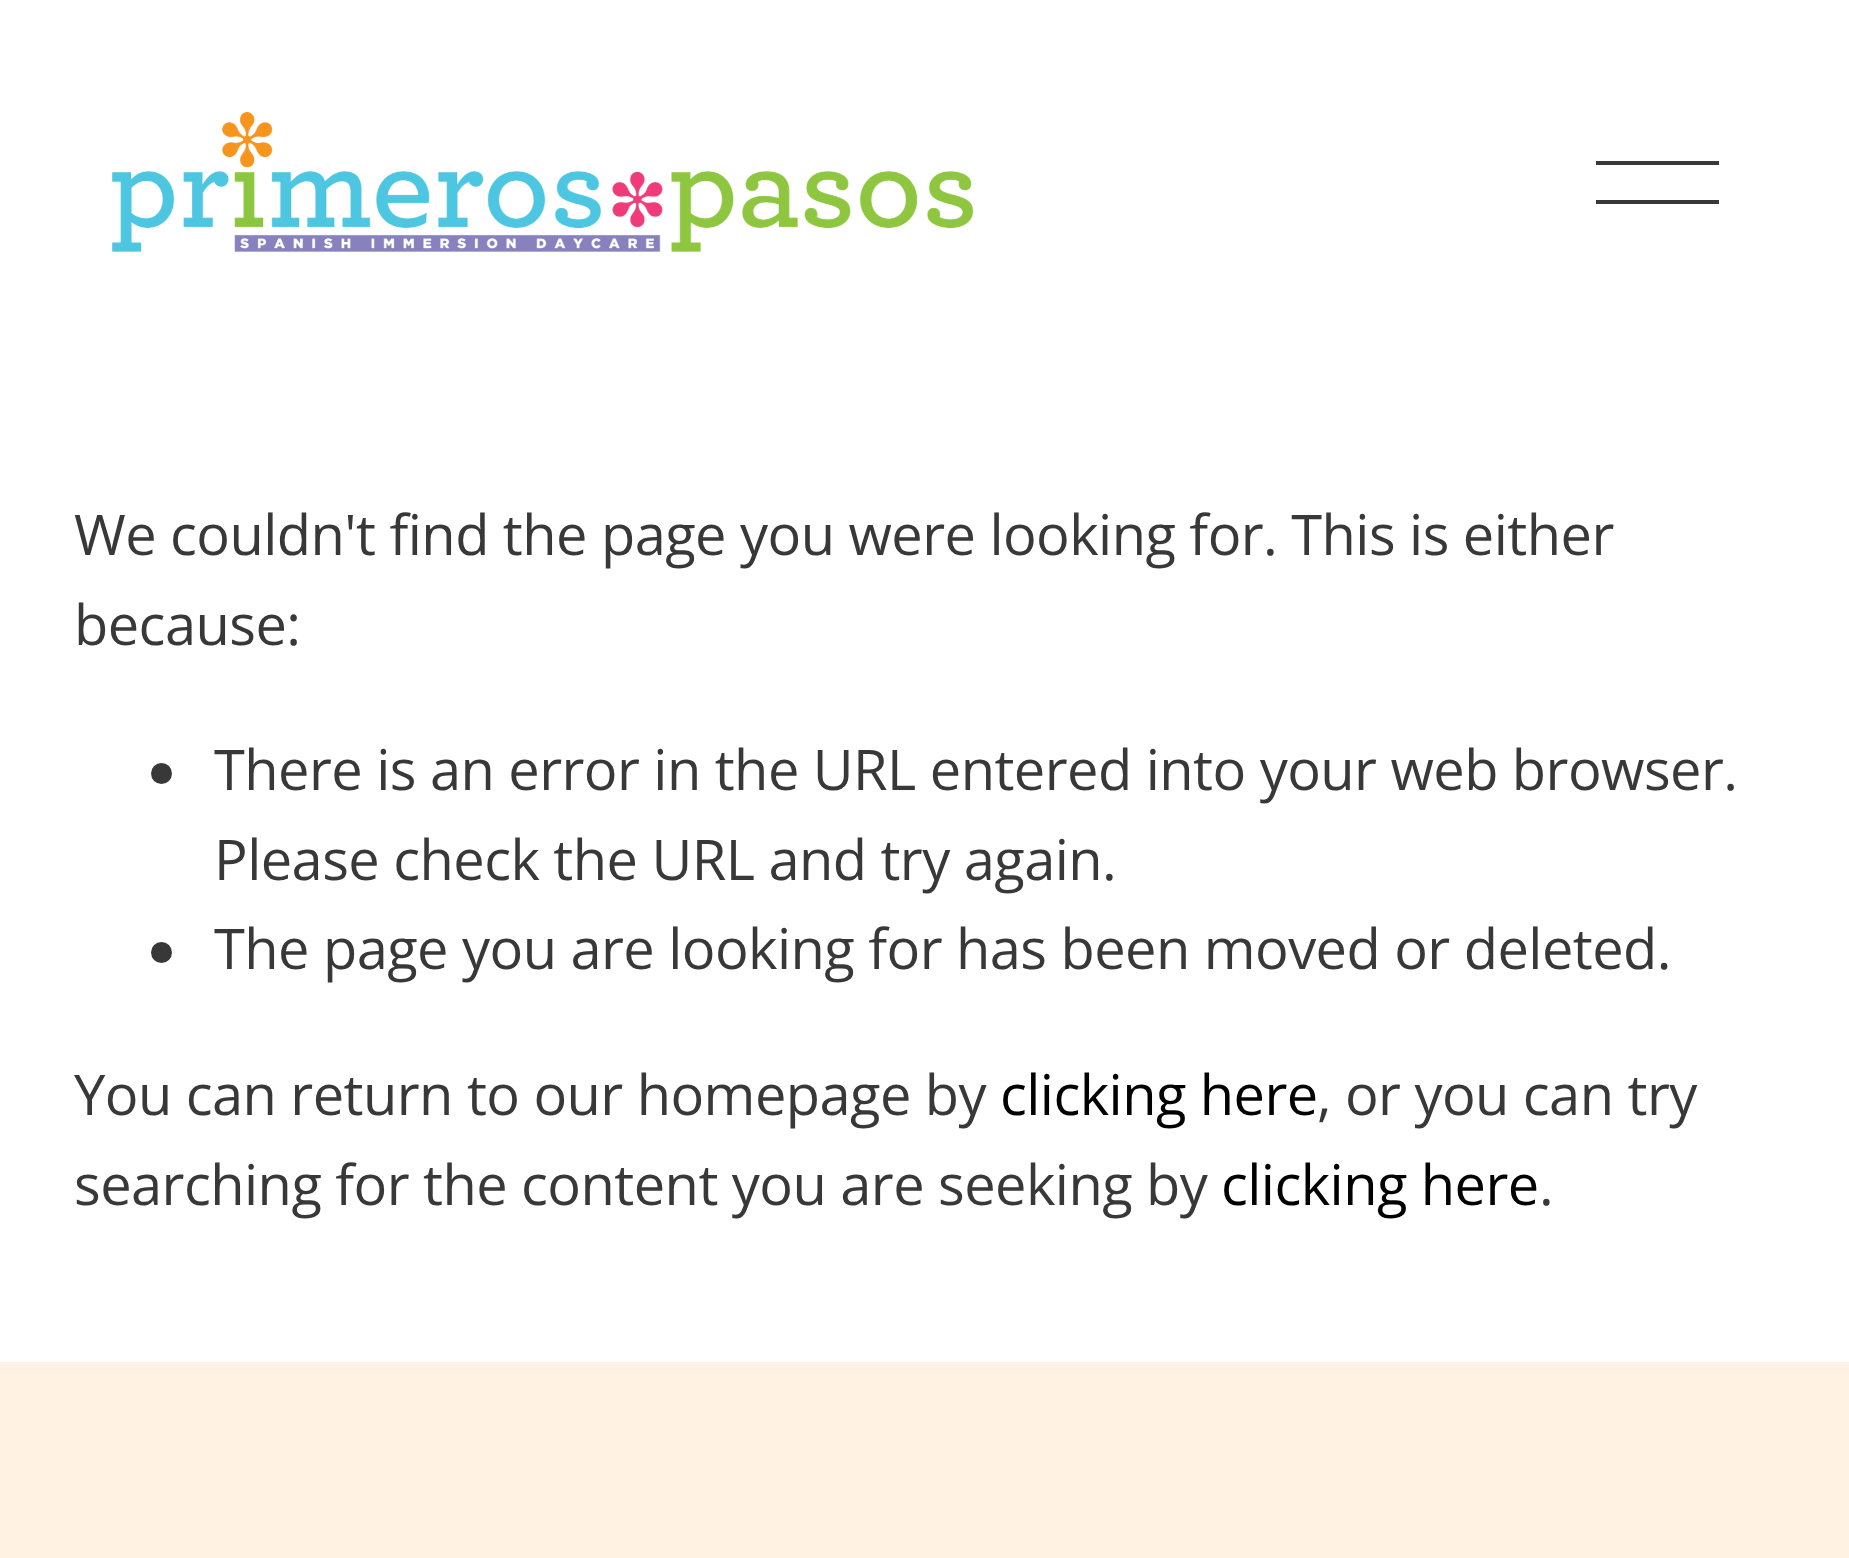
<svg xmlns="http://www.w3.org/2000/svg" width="1849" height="1558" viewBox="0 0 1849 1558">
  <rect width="100%" height="100%" fill="#ffffff"/>
  <image x="112" y="112" width="861" height="140" href="img1.png"/>
  <rect x="1596" y="161" width="123" height="4" fill="#383838"/>
  <rect x="1596" y="200" width="123" height="4" fill="#383838"/>
  <text x="74" y="555" font-family="Open Sans" font-size="56" letter-spacing="-0.55" fill="#383838">We couldn't find the page you were looking for. This is either</text>
  <text x="74" y="645" font-family="Open Sans" font-size="56" letter-spacing="-0.55" fill="#383838">because:</text>
  <circle cx="161.5" cy="773.5" r="10.5" fill="#383838"/>
  <text x="214" y="790" font-family="Open Sans" font-size="56" letter-spacing="-0.55" fill="#383838">There is an error in the URL entered into your web browser.</text>
  <text x="214" y="880" font-family="Open Sans" font-size="56" letter-spacing="-0.55" fill="#383838">Please check the URL and try again.</text>
  <circle cx="161.5" cy="952.5" r="10.5" fill="#383838"/>
  <text x="214" y="969" font-family="Open Sans" font-size="56" letter-spacing="-0.55" fill="#383838">The page you are looking for has been moved or deleted.</text>
  <text x="74" y="1115" font-family="Open Sans" font-size="56" letter-spacing="-0.55" fill="#383838">You can return to our homepage by</text>
  <text x="1000" y="1115" font-family="Open Sans" font-size="56" letter-spacing="-0.55" fill="#000000">clicking here</text>
  <text x="1317" y="1115" font-family="Open Sans" font-size="56" letter-spacing="-0.55" fill="#383838">, or you can try</text>
  <text x="74" y="1205" font-family="Open Sans" font-size="56" letter-spacing="-0.55" fill="#383838">searching for the content you are seeking by</text>
  <text x="1221" y="1205" font-family="Open Sans" font-size="56" letter-spacing="-0.55" fill="#000000">clicking here</text>
  <text x="1539" y="1205" font-family="Open Sans" font-size="56" letter-spacing="-0.55" fill="#383838">.</text>
  <rect x="0" y="1362" width="1849" height="196" fill="#fff2e3"/>
</svg>
